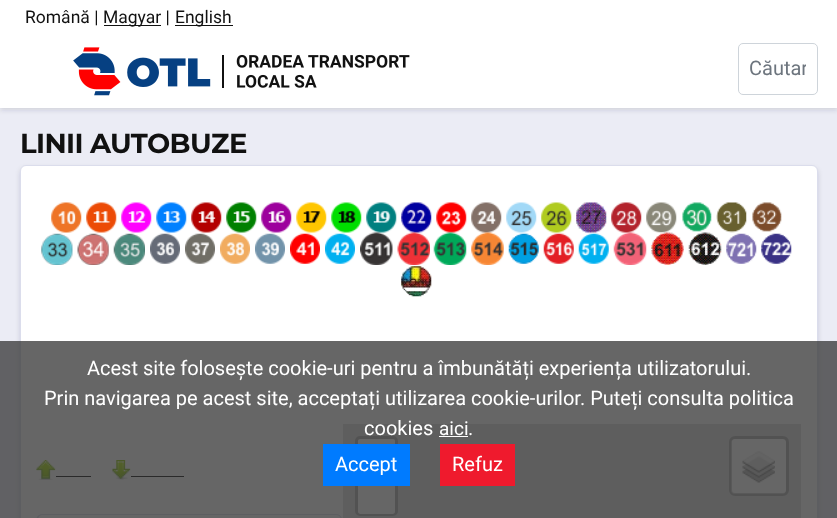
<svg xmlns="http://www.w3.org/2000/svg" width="837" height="518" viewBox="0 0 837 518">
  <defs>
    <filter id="blur1" x="-50%" y="-200%" width="200%" height="500%"><feGaussianBlur stdDeviation="2.5"/></filter>
    <clipPath id="clip1"><rect x="749" y="56" width="57" height="24"/></clipPath>
  </defs>
  <rect width="100%" height="100%" fill="#ebecf5"/>
  <rect x="0" y="3" width="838" height="107" fill="#393844" fill-opacity="0.15" filter="url(#blur1)"/>
  <rect x="0" y="0" width="837" height="108" fill="#ffffff"/>
  <text x="25" y="23" font-family="Roboto" font-size="17.5" fill="#111111">Română |</text>
  <rect x="104" y="25" width="57" height="1" fill="#111111"/>
  <text x="103" y="23" font-family="Roboto" font-size="17.5" fill="#111111">Magyar |</text>
  <rect x="175" y="25" width="58" height="1" fill="#111111"/>
  <text x="175" y="23" font-family="Roboto" font-size="17.5" fill="#111111">English</text>
  <image x="73" y="47" width="337" height="49" href="img1.png"/>
  <rect x="738.5" y="43.5" width="79" height="51" rx="4.5" fill="none" stroke="#ced4da"/>
  <g clip-path="url(#clip1)">
    <text x="749" y="75" font-family="Roboto" font-size="20" fill="#6d757e">Căutar</text>
  </g>
  <text x="20" y="153" font-family="Montserrat" font-size="27.5" font-weight="bold" letter-spacing="-0.6" fill="#111111">LINII AUTOBUZE</text>
  <rect x="20" y="168" width="798" height="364" rx="6" fill="#393844" fill-opacity="0.15" filter="url(#blur1)"/>
  <rect x="20.5" y="165.5" width="797" height="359" rx="5.5" fill="#ffffff" stroke="#dbddec"/>
  <image x="51" y="202" width="31" height="31" href="img2.png"/>
  <image x="86" y="202" width="31" height="31" href="img3.png"/>
  <image x="121" y="202" width="31" height="31" href="img4.png"/>
  <image x="156" y="202" width="31" height="31" href="img5.png"/>
  <image x="191" y="202" width="31" height="31" href="img6.png"/>
  <image x="226" y="202" width="31" height="31" href="img7.png"/>
  <image x="261" y="202" width="31" height="31" href="img8.png"/>
  <image x="296" y="202" width="31" height="31" href="img9.png"/>
  <image x="331" y="202" width="31" height="31" href="img10.png"/>
  <image x="366" y="202" width="31" height="31" href="img11.png"/>
  <image x="401" y="202" width="31" height="31" href="img12.png"/>
  <image x="436" y="202" width="31" height="31" href="img13.png"/>
  <image x="471" y="202" width="31" height="31" href="img14.png"/>
  <image x="506" y="202" width="31" height="31" href="img15.png"/>
  <image x="541" y="202" width="31" height="31" href="img16.png"/>
  <image x="576" y="202" width="31" height="31" href="img17.png"/>
  <image x="611" y="202" width="31" height="31" href="img18.png"/>
  <image x="646" y="202" width="31" height="31" href="img19.png"/>
  <image x="682" y="202" width="30" height="30" href="img20.png"/>
  <image x="716" y="202" width="31" height="31" href="img21.png"/>
  <image x="752" y="202" width="30" height="30" href="img22.png"/>
  <image x="41" y="233" width="32" height="32" href="img23.png"/>
  <image x="77" y="233" width="32" height="32" href="img24.png"/>
  <image x="113" y="233" width="32" height="32" href="img25.png"/>
  <image x="150" y="233" width="30" height="31" href="img26.png"/>
  <image x="185" y="233" width="30" height="31" href="img27.png"/>
  <image x="220" y="233" width="30" height="31" href="img28.png"/>
  <image x="255" y="233" width="30" height="31" href="img29.png"/>
  <image x="290" y="233" width="30" height="31" href="img30.png"/>
  <image x="325" y="233" width="30" height="31" href="img31.png"/>
  <image x="360" y="232" width="33" height="33" href="img32.png"/>
  <image x="397" y="232" width="33" height="33" href="img33.png"/>
  <image x="433" y="232" width="34" height="33" href="img34.png"/>
  <image x="471" y="232" width="33" height="33" href="img35.png"/>
  <image x="508" y="233" width="31" height="31" href="img36.png"/>
  <image x="543" y="233" width="31" height="31" href="img37.png"/>
  <image x="578" y="233" width="31" height="31" href="img38.png"/>
  <image x="613" y="232" width="34" height="33" href="img39.png"/>
  <image x="651" y="232" width="33" height="33" href="img40.png"/>
  <image x="688" y="232" width="34" height="33" href="img41.png"/>
  <image x="726" y="233" width="31" height="31" href="img42.png"/>
  <image x="761" y="233" width="31" height="31" href="img43.png"/>
  <image x="401" y="266" width="31" height="31" href="img44.png"/>
  <image x="36" y="460" width="20" height="20" href="img45.png"/>
  <rect x="56" y="476" width="35" height="1" fill="#111111"/>
  <image x="112" y="460" width="19" height="20" href="img46.png"/>
  <rect x="131" y="476" width="53" height="1" fill="#111111"/>
  <path d="M42 514H336C340 514 342 517 342 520V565H36V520C36 517 39 514 42 514ZM42 515H336C339 515 341 517 341 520V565H38V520C38 517 40 515 42 515Z" fill="#dbddec" fill-rule="evenodd"/>
  <rect x="343" y="424" width="458" height="94" fill="#dddddd"/>
  <rect x="356.5" y="437.5" width="40" height="77" rx="3.5" fill="none" stroke="#b1b1b1" stroke-width="3"/>
  <path d="M360.5 439H392.5C394 439 395 440 395 441.5V476H358V441.5C358 440 359 439 360.5 439Z" fill="#ffffff"/>
  <path d="M358 476H395V511.5C395 513 394 514 392.5 514H360.5C359 514 358 513 358 511.5Z" fill="#ffffff"/>
  <rect x="731" y="439" width="55" height="55" rx="4" fill="#ffffff"/>
  <rect x="730.5" y="437.5" width="57" height="57" rx="4.5" fill="none" stroke="#000000" stroke-opacity="0.2" stroke-width="3"/>
  <image x="742" y="451" width="33" height="32" href="img47.png"/>
  <rect x="0" y="341" width="837" height="177" fill="#333333" fill-opacity="0.75"/>
  <text x="87" y="375" font-family="Roboto" font-size="20" fill="#ffffff">Acest site folosește cookie-uri pentru a îmbunătăți experiența utilizatorului.</text>
  <text x="44" y="405" font-family="Roboto" font-size="20" fill="#ffffff">Prin navigarea pe acest site, acceptați utilizarea cookie-urilor. Puteți consulta politica</text>
  <text x="364" y="435" font-family="Roboto" font-size="20" fill="#ffffff">cookies</text>
  <text x="439" y="435" font-family="Roboto" font-size="19" fill="#ffffff">aici</text>
  <rect x="439" y="436" width="29" height="1" fill="#ffffff"/>
  <text x="468" y="435" font-family="Roboto" font-size="20" fill="#ffffff">.</text>
  <rect x="323" y="444" width="87" height="42" fill="#007bff"/>
  <text x="335" y="471" font-family="Roboto" font-size="20" fill="#ffffff">Accept</text>
  <rect x="440" y="444" width="75" height="42" fill="#ef1a2d"/>
  <text x="452" y="471" font-family="Roboto" font-size="20" fill="#ffffff">Refuz</text>
</svg>
